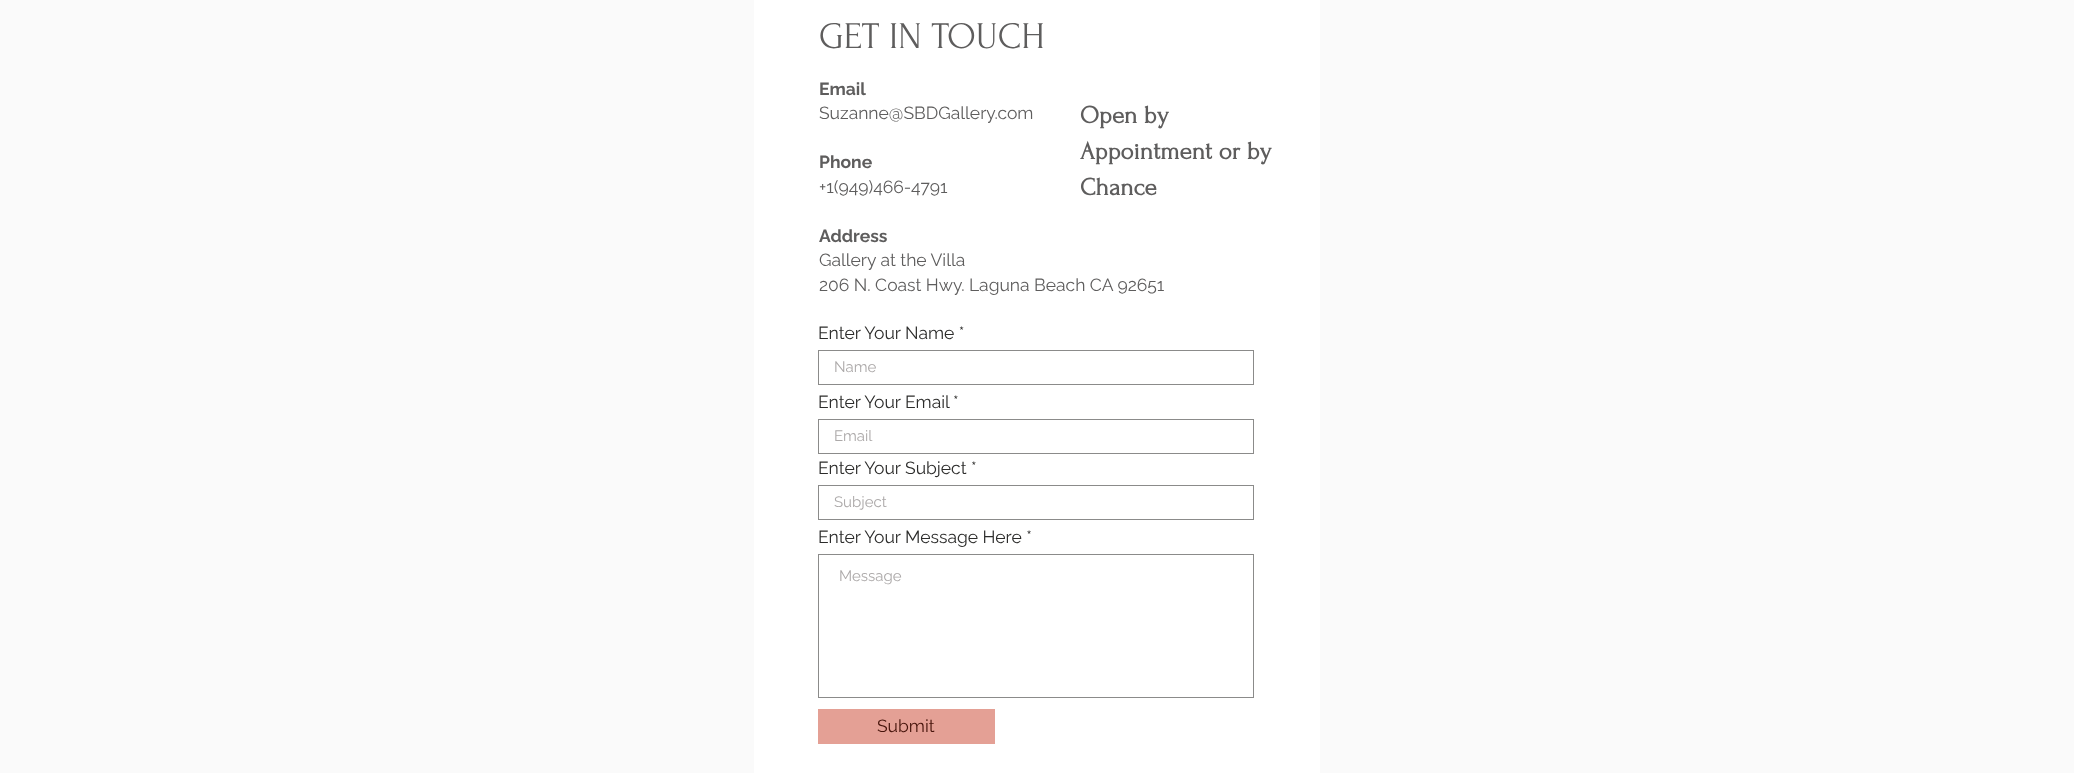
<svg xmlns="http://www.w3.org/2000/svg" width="2074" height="773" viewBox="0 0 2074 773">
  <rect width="100%" height="100%" fill="#fafafa"/>
  <rect x="754" y="0" width="566" height="773" fill="#ffffff"/>
  <text x="819" y="48" font-family="Forum" font-size="37.5" fill="#5e5d5d">GET IN TOUCH</text>
  <text x="819" y="95" font-family="Raleway" font-size="17.5" font-weight="bold" fill="#5e5d5d">Email</text>
  <text x="819" y="119" font-family="Raleway" font-size="17.5" fill="#5e5d5d">Suzanne@SBDGallery.com</text>
  <text x="819" y="168" font-family="Raleway" font-size="17.5" font-weight="bold" fill="#5e5d5d">Phone</text>
  <text x="819" y="193" font-family="Raleway" font-size="17.5" fill="#5e5d5d">+1(949)466-4791</text>
  <text x="819" y="242" font-family="Raleway" font-size="17.5" font-weight="bold" fill="#5e5d5d">Address</text>
  <text x="819" y="266" font-family="Raleway" font-size="17.5" fill="#5e5d5d">Gallery at the Villa</text>
  <text x="819" y="291" font-family="Raleway" font-size="17.5" fill="#5e5d5d">206 N. Coast Hwy. Laguna Beach CA 92651</text>
  <text x="1080" y="123" font-family="Forum" font-size="25" font-weight="bold" fill="#5e5d5d">Open by</text>
  <text x="1080" y="159" font-family="Forum" font-size="25" font-weight="bold" fill="#5e5d5d">Appointment or by</text>
  <text x="1080" y="195" font-family="Forum" font-size="25" font-weight="bold" fill="#5e5d5d">Chance</text>
  <text x="818" y="339" font-family="Raleway" font-size="17.5" fill="#2c2c2b">Enter Your Name *</text>
  <rect x="818.5" y="350.5" width="435" height="34" fill="none" stroke="#8b8b8a"/>
  <text x="834" y="372" font-family="Raleway" font-size="15" fill="#aca9a9">Name</text>
  <text x="818" y="408" font-family="Raleway" font-size="17.5" fill="#2c2c2b">Enter Your Email</text>
  <text x="953" y="408" font-family="Raleway" font-size="17.5" fill="#2c2c2b">*</text>
  <rect x="818.5" y="419.5" width="435" height="34" fill="none" stroke="#8b8b8a"/>
  <text x="834" y="441" font-family="Raleway" font-size="15" fill="#aca9a9">Email</text>
  <text x="818" y="474" font-family="Raleway" font-size="17.5" fill="#2c2c2b">Enter Your Subject *</text>
  <rect x="818.5" y="485.5" width="435" height="34" fill="none" stroke="#8b8b8a"/>
  <text x="834" y="507" font-family="Raleway" font-size="15" fill="#aca9a9">Subject</text>
  <text x="818" y="543" font-family="Raleway" font-size="17.5" fill="#2c2c2b">Enter Your Message Here *</text>
  <rect x="818.5" y="554.5" width="435" height="143" fill="none" stroke="#8b8b8a"/>
  <text x="839" y="581" font-family="Raleway" font-size="15" fill="#aca9a9">Message</text>
  <rect x="818" y="709" width="177" height="35" fill="#e4a095"/>
  <text x="877" y="732" font-family="Raleway" font-size="17.5" fill="#45130a">Submit</text>
</svg>
